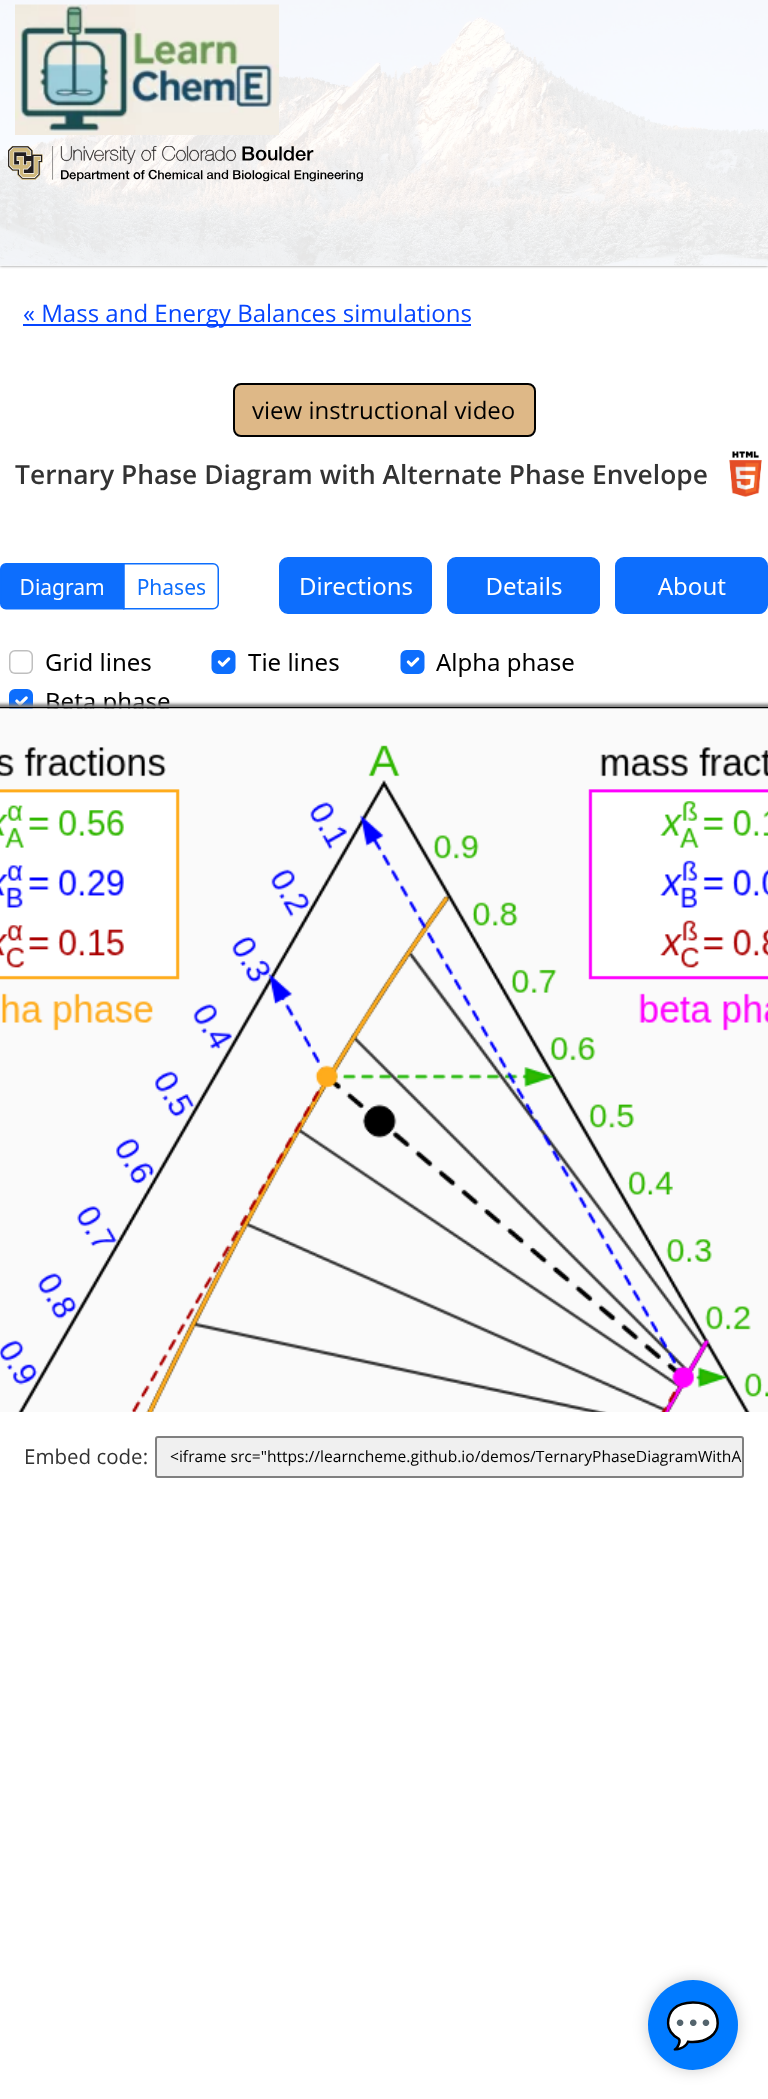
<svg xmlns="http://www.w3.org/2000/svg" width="768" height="2099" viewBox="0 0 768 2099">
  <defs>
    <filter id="blur1" x="-50%" y="-200%" width="200%" height="500%"><feGaussianBlur stdDeviation="1.5"/></filter>
    <filter id="blur2" x="-50%" y="-200%" width="200%" height="500%"><feGaussianBlur stdDeviation="7.5"/></filter>
  </defs>
  <rect width="100%" height="100%" fill="#ffffff"/>
  <rect x="23" y="324" width="448" height="2" fill="#0645ff"/>
  <text x="23" y="322" font-family="Open Sans" font-size="24" fill="#0645ff">« Mass and Energy Balances simulations</text>
  <rect x="234" y="384" width="301" height="52" rx="7" fill="#deb887" stroke="#000000" stroke-width="2"/>
  <text x="252" y="419" font-family="Open Sans" font-size="24" fill="#000000">view instructional video</text>
  <text x="15" y="484" font-family="Open Sans" font-size="26.4" font-weight="600" fill="#333333">Ternary Phase Diagram with Alternate Phase Envelope</text>
  <image x="729" y="451" width="33" height="46" href="img1.png"/>
  <image x="0" y="557" width="768" height="855" href="img2.png"/>
  <text x="24" y="1464" font-family="Open Sans" font-size="20.5" fill="#333333">Embed code:</text>
  <rect x="156" y="1437" width="587" height="40" rx="2" fill="#f0f0f0" stroke="#808080" stroke-width="2"/>
  <text x="170" y="1462" font-family="Open Sans" font-size="15.6" fill="#000000">&lt;iframe src="https://learncheme.github.io/demos/TernaryPhaseDiagramWithA</text>
  <rect x="0" y="0" width="768" height="266" fill="#000000" fill-opacity="0.5" filter="url(#blur1)"/>
  <image x="0" y="0" width="768" height="266" href="img3.png"/>
  <rect x="0" y="0" width="768" height="266" fill="#ffffff" fill-opacity="0.9"/>
  <image x="15" y="4" width="264" height="131" href="img4.png"/>
  <image x="8" y="146" width="355" height="36" href="img5.png"/>
  <rect x="648" y="1980" width="90" height="90" rx="45" fill="#000000" fill-opacity="0.2" filter="url(#blur2)"/>
  <circle cx="693" cy="2025" r="45" fill="#007aff"/>
  <text x="665" y="2041" font-family="Noto Color Emoji" font-size="45" fill="#ffffff">💬</text>
</svg>
